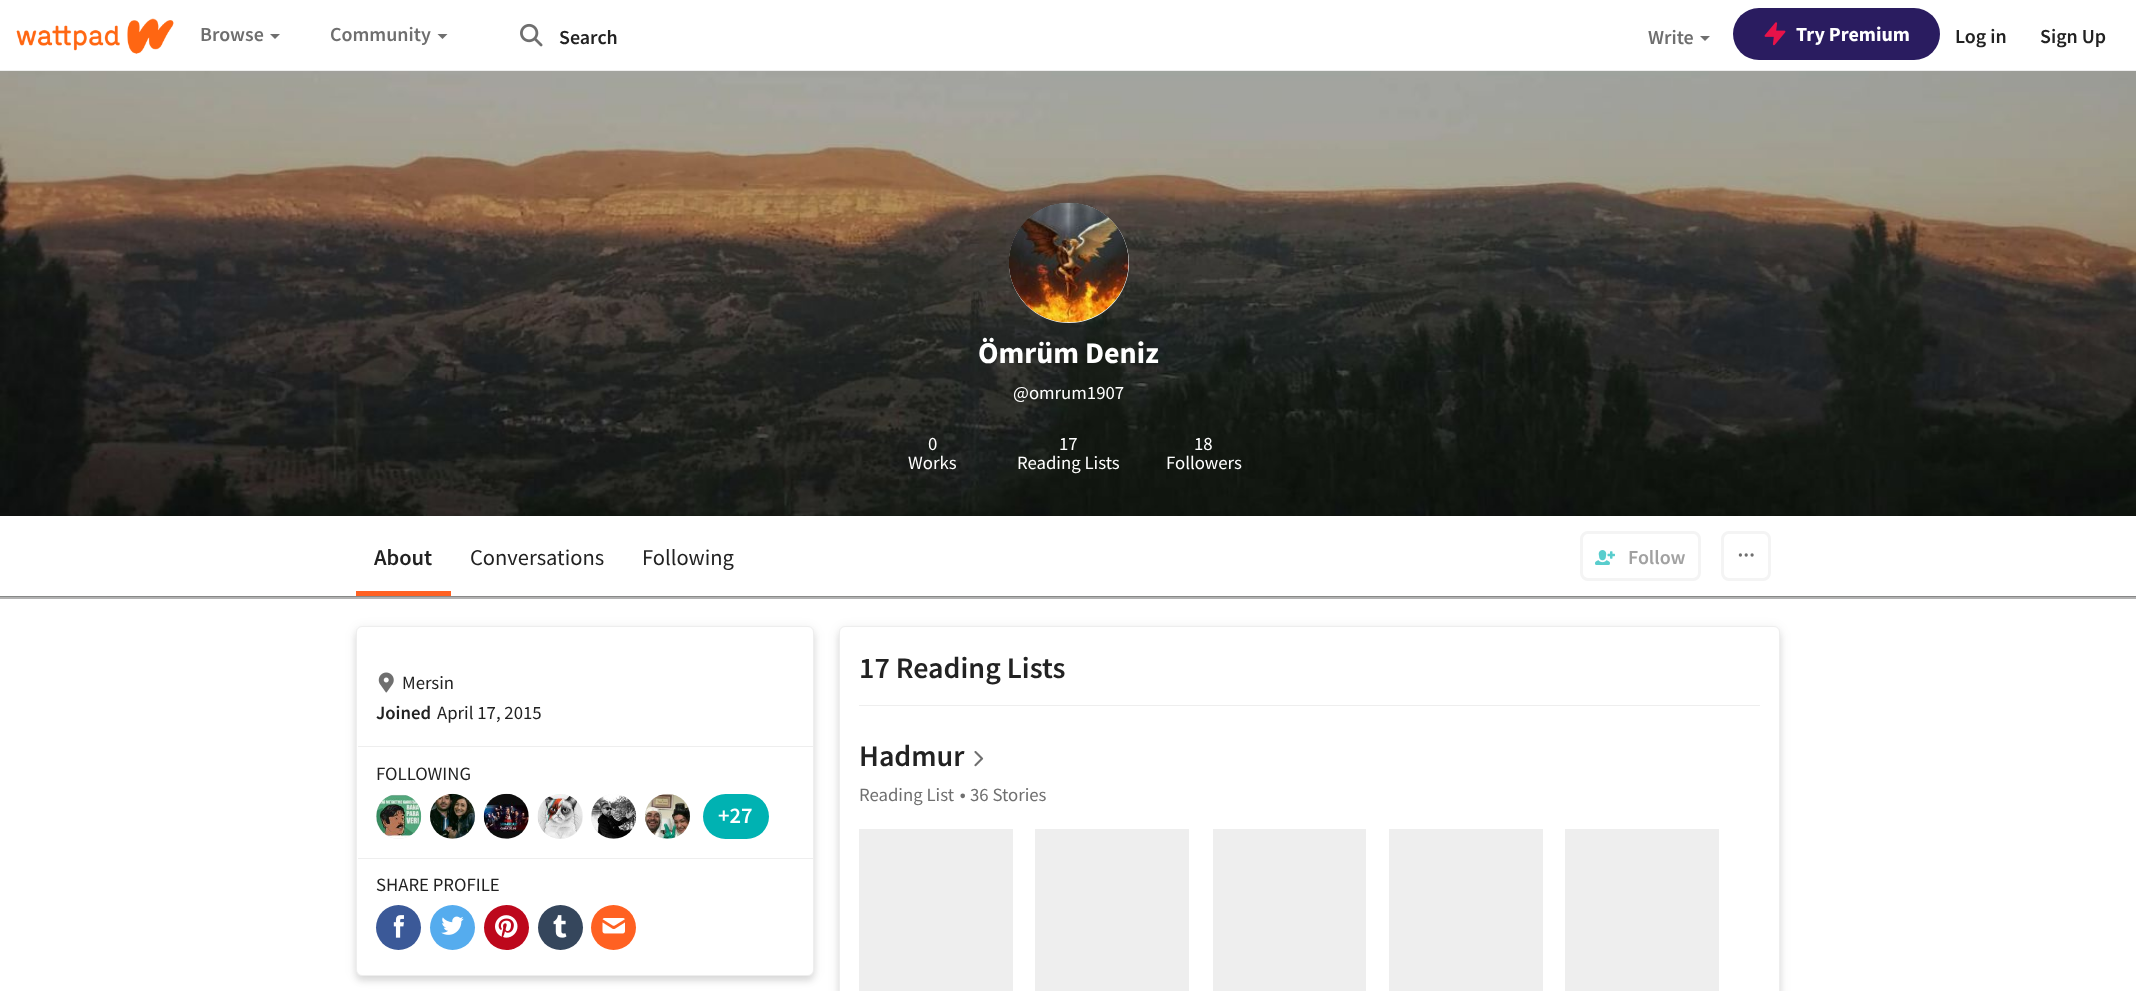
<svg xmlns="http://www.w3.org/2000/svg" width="2136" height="991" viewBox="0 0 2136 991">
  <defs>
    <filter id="blur1" x="-50%" y="-200%" width="200%" height="500%"><feGaussianBlur stdDeviation="3"/></filter>
    <filter id="blur2" x="-50%" y="-200%" width="200%" height="500%"><feGaussianBlur stdDeviation="6"/></filter>
  </defs>
  <rect width="100%" height="100%" fill="#ffffff"/>
  <rect x="0" y="70" width="2136" height="1" fill="#eeeeee"/>
  <image x="16" y="18" width="158" height="36" href="img1.png"/>
  <text x="200" y="41" font-family="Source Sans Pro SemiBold" font-size="20" font-weight="600" fill="#6f6f6f">Browse</text>
  <path d="M270 34H280L275 39Z" fill="#6f6f6f"/>
  <text x="330" y="41" font-family="Source Sans Pro SemiBold" font-size="20" font-weight="600" fill="#6f6f6f">Community</text>
  <path d="M437.5 34H447.5L442.5 39Z" fill="#6f6f6f"/>
  <image x="520" y="23" width="23" height="24" href="img2.png"/>
  <text x="559" y="44" font-family="Source Sans Pro SemiBold" font-size="20" font-weight="600" fill="#222222">Search</text>
  <text x="1648" y="44" font-family="Source Sans Pro SemiBold" font-size="20" font-weight="600" fill="#6f6f6f">Write</text>
  <path d="M1700 36H1710L1705 41Z" fill="#6f6f6f"/>
  <rect x="1733" y="8" width="207" height="52" rx="26" fill="#2a1c60"/>
  <image x="1764" y="22" width="22" height="24" href="img3.png"/>
  <text x="1796" y="41" font-family="Source Sans Pro" font-size="20" font-weight="bold" fill="#ffffff">Try Premium</text>
  <text x="1955" y="43" font-family="Source Sans Pro SemiBold" font-size="20" font-weight="600" fill="#222222">Log in</text>
  <text x="2040" y="43" font-family="Source Sans Pro SemiBold" font-size="20" font-weight="600" fill="#222222">Sign Up</text>
  <image x="0" y="71" width="2136" height="526" href="img4.png"/>
  <circle cx="1069" cy="263" r="60" fill="#eeeeee"/>
  <image x="1009" y="202" width="120" height="121" href="img5.png"/>
  <text x="978" y="363" font-family="Source Sans Pro" font-size="30" font-weight="bold" fill="#ffffff">Ömrüm Deniz</text>
  <text x="1013" y="399" font-family="Source Sans Pro" font-size="18.75" fill="#ffffff">@omrum1907</text>
  <text x="928" y="450" font-family="Source Sans Pro" font-size="18.75" fill="#ffffff">0</text>
  <text x="908" y="469" font-family="Source Sans Pro" font-size="18.75" fill="#ffffff">Works</text>
  <text x="1059" y="450" font-family="Source Sans Pro" font-size="18.75" fill="#ffffff">17</text>
  <text x="1017" y="469" font-family="Source Sans Pro" font-size="18.75" fill="#ffffff">Reading Lists</text>
  <text x="1194" y="450" font-family="Source Sans Pro" font-size="18.75" fill="#ffffff">18</text>
  <text x="1166" y="469" font-family="Source Sans Pro" font-size="18.75" fill="#ffffff">Followers</text>
  <rect x="0" y="596" width="2136" height="3" fill="#000000" fill-opacity="0.3"/>
  <rect x="0" y="516" width="2136" height="80" fill="#ffffff"/>
  <rect x="356" y="591" width="95" height="5" fill="#ff6122"/>
  <text x="374" y="565" font-family="Source Sans Pro SemiBold" font-size="22.5" font-weight="600" fill="#222222">About</text>
  <text x="470" y="565" font-family="Source Sans Pro" font-size="22.5" fill="#222222">Conversations</text>
  <text x="642" y="565" font-family="Source Sans Pro" font-size="22.5" fill="#222222">Following</text>
  <rect x="1581.5" y="532.5" width="118" height="47" rx="6.5" fill="none" stroke="#f4f4f4" stroke-width="3"/>
  <image x="1595" y="550" width="20" height="15" href="img6.png"/>
  <text x="1628" y="564" font-family="Source Sans Pro SemiBold" font-size="20" font-weight="600" fill="#a1a1a1">Follow</text>
  <rect x="1722.5" y="532.5" width="47" height="47" rx="6.5" fill="none" stroke="#f4f4f4" stroke-width="3"/>
  <circle cx="1740.4" cy="555" r="0.8" fill="none" stroke="#6f6f6f" stroke-width="1.7"/>
  <circle cx="1746.2" cy="555" r="0.8" fill="none" stroke="#6f6f6f" stroke-width="1.7"/>
  <circle cx="1752.1" cy="555" r="0.8" fill="none" stroke="#6f6f6f" stroke-width="1.7"/>
  <rect x="356" y="631" width="458" height="350" rx="6" fill="#222222" fill-opacity="0.1" filter="url(#blur1)"/>
  <rect x="356" y="628" width="458" height="350" rx="6" fill="#222222" fill-opacity="0.08" filter="url(#blur2)"/>
  <rect x="356.5" y="626.5" width="457" height="349" rx="5.5" fill="#ffffff" stroke="#eeeeee"/>
  <image x="378" y="672" width="16" height="21" href="img7.png"/>
  <text x="402" y="689" font-family="Source Sans Pro" font-size="18.75" fill="#222222">Mersin</text>
  <text x="376" y="719" font-family="Source Sans Pro SemiBold" font-size="18.75" font-weight="600" fill="#222222">Joined</text>
  <text x="437" y="719" font-family="Source Sans Pro" font-size="18.75" fill="#222222">April 17, 2015</text>
  <rect x="358" y="746" width="455" height="1" fill="#eeeeee"/>
  <text x="376" y="780" font-family="Source Sans Pro" font-size="18.75" fill="#222222">FOLLOWING</text>
  <circle cx="398.5" cy="816.5" r="22.5" fill="#eeeeee"/>
  <image x="376" y="794" width="46" height="45" href="img8.png"/>
  <circle cx="452.5" cy="816.5" r="22.5" fill="#eeeeee"/>
  <image x="430" y="793" width="45" height="46" href="img9.png"/>
  <circle cx="506.5" cy="816.5" r="22.5" fill="#eeeeee"/>
  <image x="483" y="793" width="46" height="46" href="img10.png"/>
  <circle cx="560.5" cy="816.5" r="22.5" fill="#eeeeee"/>
  <image x="537" y="794" width="45" height="45" href="img11.png"/>
  <circle cx="613.5" cy="816.5" r="22.5" fill="#eeeeee"/>
  <image x="591" y="794" width="46" height="45" href="img12.png"/>
  <circle cx="667.5" cy="816.5" r="22.5" fill="#eeeeee"/>
  <image x="645" y="793" width="45" height="46" href="img13.png"/>
  <rect x="703" y="794" width="66" height="45" rx="22.5" fill="#00b2b2"/>
  <text x="718" y="823" font-family="Source Sans Pro SemiBold" font-size="22.5" font-weight="600" fill="#ffffff">+27</text>
  <rect x="358" y="858" width="455" height="1" fill="#eeeeee"/>
  <text x="376" y="891" font-family="Source Sans Pro" font-size="18.75" fill="#222222">SHARE PROFILE</text>
  <circle cx="398.5" cy="927.5" r="22.5" fill="#3b5998"/>
  <image x="393" y="915" width="11" height="23" href="img14.png"/>
  <circle cx="452.5" cy="927.5" r="22.5" fill="#55acee"/>
  <image x="441" y="916" width="23" height="19" href="img15.png"/>
  <circle cx="506.5" cy="927.5" r="22.5" fill="#bd081c"/>
  <image x="495" y="915" width="23" height="23" href="img16.png"/>
  <circle cx="560.5" cy="927.5" r="22.5" fill="#35465c"/>
  <image x="553" y="915" width="14" height="23" href="img17.png"/>
  <circle cx="613.5" cy="927.5" r="22.5" fill="#ff6122"/>
  <image x="602" y="918" width="23" height="16" href="img18.png"/>
  <rect x="839" y="631" width="941" height="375" rx="6" fill="#222222" fill-opacity="0.1" filter="url(#blur1)"/>
  <rect x="839" y="628" width="941" height="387" rx="6" fill="#222222" fill-opacity="0.08" filter="url(#blur2)"/>
  <rect x="839.5" y="626.5" width="940" height="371" rx="5.5" fill="#ffffff" stroke="#eeeeee"/>
  <text x="859" y="678" font-family="Source Sans Pro SemiBold" font-size="30" font-weight="600" fill="#222222">17 Reading Lists</text>
  <rect x="859" y="705" width="901" height="1" fill="#eeeeee"/>
  <text x="859" y="766" font-family="Source Sans Pro SemiBold" font-size="30" font-weight="600" fill="#222222">Hadmur</text>
  <image x="974" y="751" width="10" height="16" href="img19.png"/>
  <text x="859" y="801" font-family="Source Sans Pro" font-size="18.75" fill="#6f6f6f">Reading List</text>
  <text x="958" y="808" font-family="Source Sans Pro" font-size="38" fill="#6f6f6f">·</text>
  <text x="970" y="801" font-family="Source Sans Pro" font-size="18.75" fill="#6f6f6f">36 Stories</text>
  <rect x="859" y="829" width="154" height="162" fill="#eeeeee"/>
  <rect x="1035" y="829" width="154" height="162" fill="#eeeeee"/>
  <rect x="1213" y="829" width="153" height="162" fill="#eeeeee"/>
  <rect x="1389" y="829" width="154" height="162" fill="#eeeeee"/>
  <rect x="1565" y="829" width="154" height="162" fill="#eeeeee"/>
</svg>
